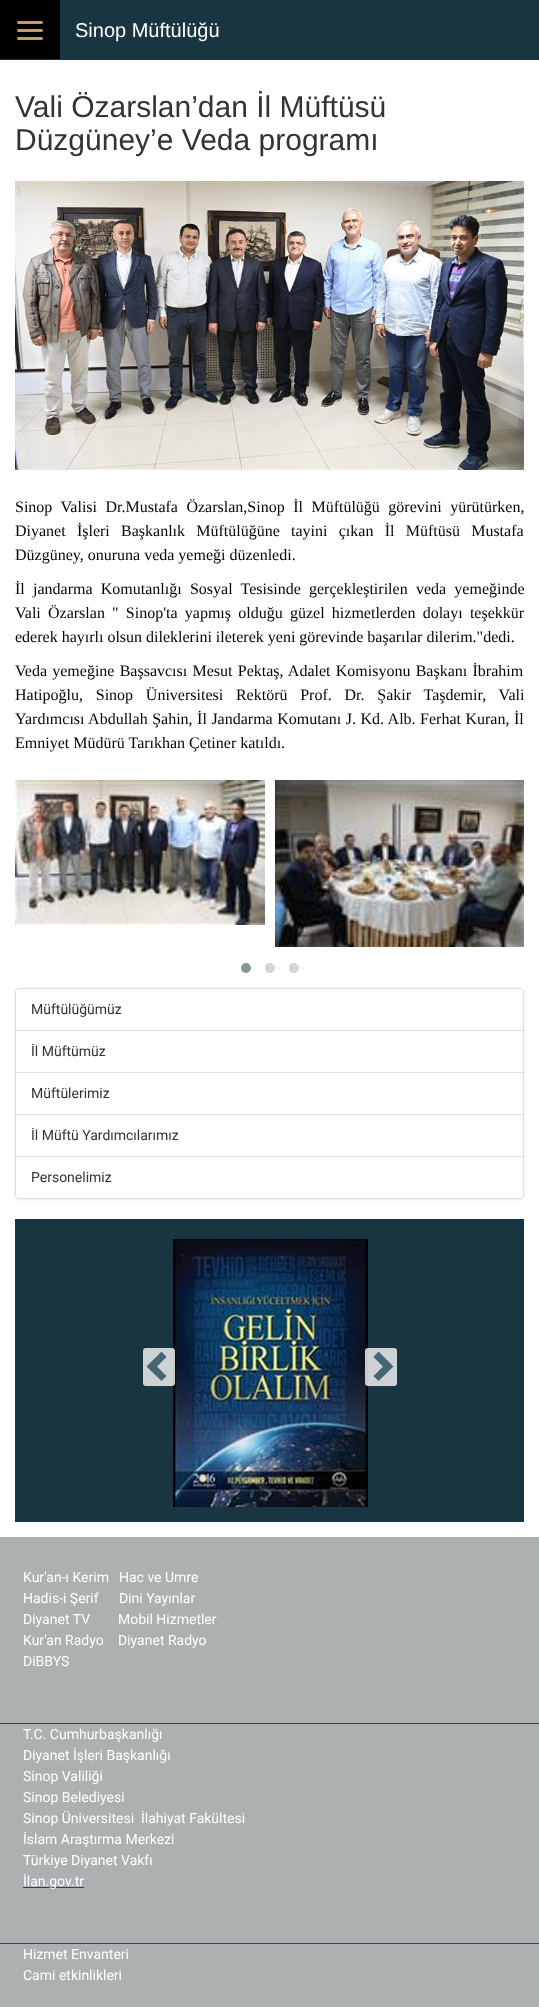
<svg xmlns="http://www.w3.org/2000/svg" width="539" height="2007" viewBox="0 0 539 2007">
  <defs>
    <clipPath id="clip1"><path d="M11 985H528V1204H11ZM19 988H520C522 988 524 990 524 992V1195C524 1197 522 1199 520 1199H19C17 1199 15 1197 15 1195V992C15 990 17 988 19 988Z" clip-rule="evenodd"/></clipPath>
    <filter id="blur1" x="-50%" y="-200%" width="200%" height="500%"><feGaussianBlur stdDeviation="1"/></filter>
  </defs>
  <rect width="100%" height="100%" fill="#ffffff"/>
  <rect x="0" y="0" width="539" height="60" fill="#193541"/>
  <rect x="0" y="0" width="60" height="59" fill="#000000"/>
  <rect x="17" y="21" width="26" height="3" rx="1.5" fill="#c59b6a"/>
  <rect x="17" y="29" width="26" height="3" rx="1.5" fill="#c59b6a"/>
  <rect x="17" y="37" width="26" height="3" rx="1.5" fill="#c59b6a"/>
  <text x="75" y="37" font-family="Liberation Sans" font-size="20" fill="#ffffff">Sinop Müftülüğü</text>
  <text x="15" y="117" font-family="Liberation Sans" font-size="30" fill="#333333">Vali Özarslan’dan İl Müftüsü</text>
  <text x="15" y="150" font-family="Liberation Sans" font-size="30" fill="#333333">Düzgüney’e Veda programı</text>
  <image x="15" y="181" width="509" height="289" href="img1.png"/>
  <text x="15" y="512" word-spacing="4.5" font-family="Liberation Serif" font-size="16" fill="#050505">Sinop Valisi Dr.Mustafa Özarslan,Sinop İl Müftülüğü görevini yürütürken,</text>
  <text x="15" y="536" word-spacing="7.25" font-family="Liberation Serif" font-size="16" fill="#050505">Diyanet İşleri Başkanlık Müftülüğüne tayini çıkan İl Müftüsü Mustafa</text>
  <text x="15" y="560" font-family="Liberation Serif" font-size="16" fill="#050505">Düzgüney, onuruna veda yemeği düzenledi.</text>
  <text x="15" y="594" word-spacing="4.25" font-family="Liberation Serif" font-size="16" fill="#050505">İl jandarma Komutanlığı Sosyal Tesisinde gerçekleştirilen veda yemeğinde</text>
  <text x="15" y="618" word-spacing="3.25" font-family="Liberation Serif" font-size="16" fill="#050505">Vali Özarslan</text>
  <text x="112" y="618" word-spacing="3.25" font-family="Liberation Serif" font-size="16" fill="#050505">" Sinop'ta yapmış olduğu güzel hizmetlerden dolayı teşekkür</text>
  <text x="15" y="642" font-family="Liberation Serif" font-size="16" fill="#050505">ederek hayırlı olsun dileklerini ileterek yeni görevinde başarılar dilerim."dedi.</text>
  <text x="15" y="676" word-spacing="1.25" font-family="Liberation Serif" font-size="16" fill="#050505">Veda yemeğine Başsavcısı Mesut Pektaş, Adalet Komisyonu Başkanı İbrahim</text>
  <text x="15" y="700" word-spacing="8.75" font-family="Liberation Serif" font-size="16" fill="#050505">Hatipoğlu, Sinop Üniversitesi Rektörü Prof. Dr. Şakir Taşdemir, Vali</text>
  <text x="15" y="724" word-spacing="0.5" font-family="Liberation Serif" font-size="16" fill="#050505">Yardımcısı Abdullah Şahin, İl Jandarma Komutanı J. Kd. Alb. Ferhat Kuran, İl</text>
  <text x="15" y="748" font-family="Liberation Serif" font-size="16" fill="#050505">Emniyet Müdürü Tarıkhan Çetiner katıldı.</text>
  <image x="15" y="780" width="250" height="145" href="img2.png"/>
  <image x="275" y="780" width="249" height="167" href="img3.png"/>
  <circle cx="246" cy="968" r="5" fill="#869791"/>
  <circle cx="270" cy="968" r="5" fill="#d6d6d6"/>
  <circle cx="294" cy="968" r="5" fill="#d6d6d6"/>
  <g clip-path="url(#clip1)">
    <rect x="15" y="989" width="509" height="211" rx="4" fill="#000000" fill-opacity="0.07" filter="url(#blur1)"/>
  </g>
  <path d="M19 988.5H520C522 988.5 523.5 990 523.5 992V1030.5H15.5V992C15.5 990 17 988.5 19 988.5Z" fill="none" stroke="#dddddd"/>
  <text x="31" y="1014" font-family="Roboto" font-size="14" fill="#333333">Müftülüğümüz</text>
  <rect x="15.5" y="1030.5" width="508" height="42" fill="none" stroke="#dddddd"/>
  <text x="31" y="1056" font-family="Roboto" font-size="14" fill="#333333">İl Müftümüz</text>
  <rect x="15.5" y="1072.5" width="508" height="42" fill="none" stroke="#dddddd"/>
  <text x="31" y="1098" font-family="Roboto" font-size="14" fill="#333333">Müftülerimiz</text>
  <rect x="15.5" y="1114.5" width="508" height="42" fill="none" stroke="#dddddd"/>
  <text x="31" y="1140" font-family="Roboto" font-size="14" fill="#333333">İl Müftü Yardımcılarımız</text>
  <path d="M15.5 1156.5H523.5V1195C523.5 1197 522 1198.5 520 1198.5H19C17 1198.5 15.5 1197 15.5 1195Z" fill="#ffffff" stroke="#dddddd"/>
  <text x="31" y="1182" font-family="Roboto" font-size="14" fill="#333333">Personelimiz</text>
  <rect x="15" y="1219" width="509" height="303" fill="#193541"/>
  <image x="173" y="1239" width="195" height="268" href="img4.png"/>
  <rect x="143" y="1348" width="32" height="38" rx="3" fill="#ececec" fill-opacity="0.86"/>
  <path d="M166.5 1357L157 1366.5L166.5 1376L161.5 1381L146.5 1366.5L161.5 1351.5Z" fill="#466675"/>
  <rect x="365" y="1348" width="32" height="38" rx="3" fill="#ececec" fill-opacity="0.86"/>
  <path d="M393.5 1366.5L378.5 1381L373.5 1376L383 1366.5L373.5 1357L378.5 1351.5Z" fill="#466675"/>
  <rect x="0" y="1537" width="539" height="470" fill="#abb0b0"/>
  <rect x="0" y="1723" width="539" height="1" fill="#323c6d"/>
  <text x="23" y="1582" font-family="Roboto" font-size="14" fill="#ffffff">Kur'an-ı Kerim</text>
  <text x="119" y="1582" font-family="Roboto" font-size="14" fill="#ffffff">Hac ve Umre</text>
  <text x="23" y="1603" font-family="Roboto" font-size="14" fill="#ffffff">Hadis-i Şerif</text>
  <text x="119" y="1603" font-family="Roboto" font-size="14" fill="#ffffff">Dini Yayınlar</text>
  <text x="23" y="1624" font-family="Roboto" font-size="14" fill="#ffffff">Diyanet TV</text>
  <text x="118" y="1624" font-family="Roboto" font-size="14" fill="#ffffff">Mobil Hizmetler</text>
  <text x="23" y="1645" font-family="Roboto" font-size="14" fill="#ffffff">Kur'an Radyo</text>
  <text x="118" y="1645" font-family="Roboto" font-size="14" fill="#ffffff">Diyanet Radyo</text>
  <text x="23" y="1666" font-family="Roboto" font-size="14" fill="#ffffff">DiBBYS</text>
  <rect x="0" y="1943" width="539" height="1" fill="#323c6d"/>
  <text x="23" y="1739" font-family="Roboto" font-size="14" fill="#ffffff">T.C. Cumhurbaşkanlığı</text>
  <text x="23" y="1760" font-family="Roboto" font-size="14" fill="#ffffff">Diyanet İşleri Başkanlığı</text>
  <text x="23" y="1781" font-family="Roboto" font-size="14" fill="#ffffff">Sinop Valiliği</text>
  <text x="23" y="1802" font-family="Roboto" font-size="14" fill="#ffffff">Sinop Belediyesi</text>
  <text x="23" y="1823" font-family="Roboto" font-size="14" fill="#ffffff">Sinop Üniversitesi</text>
  <text x="141" y="1823" font-family="Roboto" font-size="14" fill="#ffffff">İlahiyat Fakültesi</text>
  <text x="23" y="1844" font-family="Roboto" font-size="14" fill="#ffffff">İslam Araştırma Merkezi</text>
  <text x="23" y="1865" font-family="Roboto" font-size="14" fill="#ffffff">Türkiye Diyanet Vakfı</text>
  <rect x="23" y="1887" width="61" height="1" fill="#323c6d"/>
  <text x="23" y="1886" font-family="Roboto" font-size="14" fill="#ffffff">İlan.gov.tr</text>
  <text x="23" y="1959" font-family="Roboto" font-size="14" fill="#ffffff">Hizmet Envanteri</text>
  <text x="23" y="1980" font-family="Roboto" font-size="14" fill="#ffffff">Cami etkinlikleri</text>
</svg>
